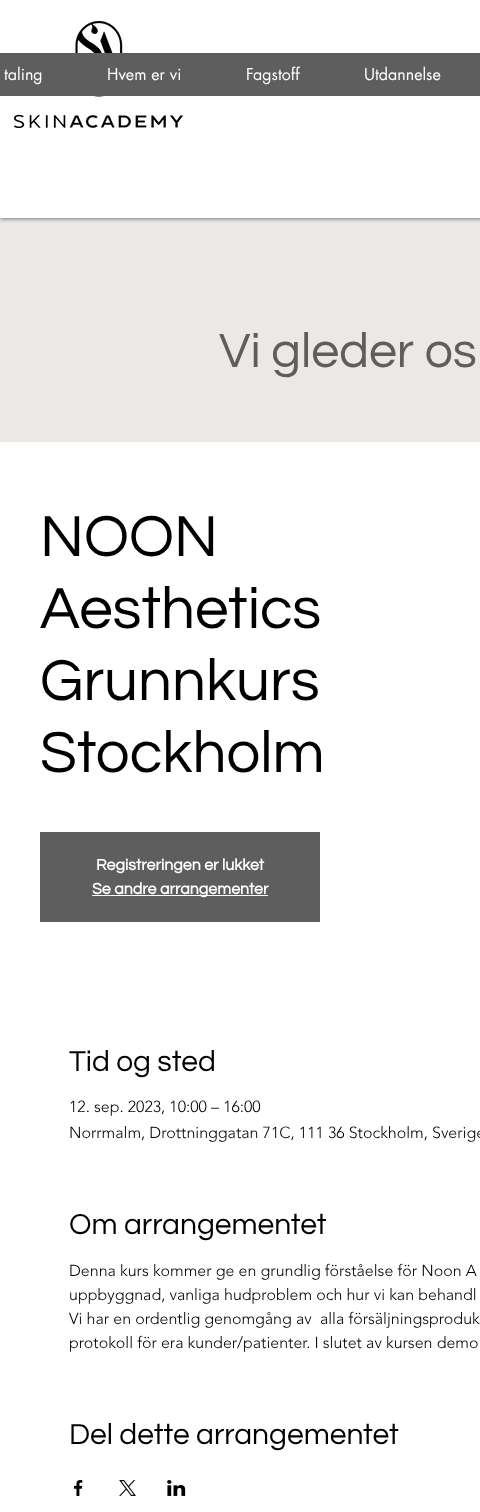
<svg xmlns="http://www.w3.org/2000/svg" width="480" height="1512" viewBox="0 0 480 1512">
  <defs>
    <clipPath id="clip1"><rect x="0" y="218" width="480" height="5"/></clipPath>
    <filter id="blur1" x="-50%" y="-200%" width="200%" height="500%"><feGaussianBlur stdDeviation="2.5"/></filter>
  </defs>
  <rect width="100%" height="100%" fill="#ffffff"/>
  <rect x="0" y="218" width="480" height="224" fill="#ebe8e5"/>
  <g clip-path="url(#clip1)">
    <rect x="0" y="0" width="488" height="218" fill="#000000" fill-opacity="0.7" filter="url(#blur1)"/>
  </g>
  <image x="14" y="21" width="169" height="107" href="img1.png"/>
  <rect x="0" y="53" width="480" height="43" fill="#5e5e5e"/>
  <text x="4" y="80" font-family="futura" font-size="16" fill="#ffffff">taling</text>
  <text x="107" y="80" font-family="futura" font-size="16" fill="#ffffff">Hvem er vi</text>
  <text x="246" y="80" font-family="futura" font-size="16" fill="#ffffff">Fagstoff</text>
  <text x="364" y="80" font-family="futura" font-size="16" fill="#ffffff">Utdannelse</text>
  <text x="219" y="367" font-family="Questrial" font-size="50" fill="#5e5e5e">Vi gleder os</text>
  <text x="40" y="556" font-family="Questrial" font-size="60" fill="#000000">NOON</text>
  <text x="40" y="628" font-family="Questrial" font-size="60" fill="#000000">Aesthetics</text>
  <text x="40" y="700" font-family="Questrial" font-size="60" fill="#000000">Grunnkurs</text>
  <text x="40" y="772" font-family="Questrial" font-size="60" fill="#000000">Stockholm</text>
  <rect x="40" y="832" width="280" height="90" fill="#5e5e5e"/>
  <text x="96" y="870" font-family="Questrial" font-size="16" font-weight="bold" fill="#ffffff">Registreringen er lukket</text>
  <rect x="92" y="895" width="176" height="1" fill="#ffffff"/>
  <text x="92" y="894" font-family="Questrial" font-size="16" font-weight="bold" fill="#ffffff">Se andre arrangementer</text>
  <text x="69" y="1071" font-family="Questrial" font-size="30" fill="#000000">Tid og sted</text>
  <text x="69" y="1112" font-family="'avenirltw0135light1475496'" font-size="16" font-weight="300" fill="#000000">12. sep. 2023, 10:00 – 16:00</text>
  <text x="69" y="1138" font-family="'avenirltw0135light1475496'" font-size="16" font-weight="300" fill="#000000">Norrmalm, Drottninggatan 71C, 111 36 Stockholm, Sverige</text>
  <text x="69" y="1234" font-family="Questrial" font-size="30" fill="#000000">Om arrangementet</text>
  <text x="69" y="1276" font-family="'avenirltw0135light1475496'" font-size="16" font-weight="300" fill="#000000">Denna kurs kommer ge en grundlig förståelse för Noon A</text>
  <text x="69" y="1300" font-family="'avenirltw0135light1475496'" font-size="16" font-weight="300" fill="#000000">uppbyggnad, vanliga hudproblem och hur vi kan behandl</text>
  <text x="69" y="1324" font-family="'avenirltw0135light1475496'" font-size="16" font-weight="300" fill="#000000" xml:space="preserve">Vi har en ordentlig genomgång av  alla försäljningsproduk</text>
  <text x="69" y="1348" font-family="'avenirltw0135light1475496'" font-size="16" font-weight="300" fill="#000000">protokoll för era kunder/patienter. I slutet av kursen demo</text>
  <text x="69" y="1444" font-family="Questrial" font-size="30" fill="#000000">Del dette arrangementet</text>
  <image x="74" y="1480" width="9" height="16" href="img2.png"/>
  <image x="119" y="1480" width="17" height="16" href="img3.png"/>
  <image x="167" y="1480" width="19" height="16" href="img4.png"/>
</svg>
